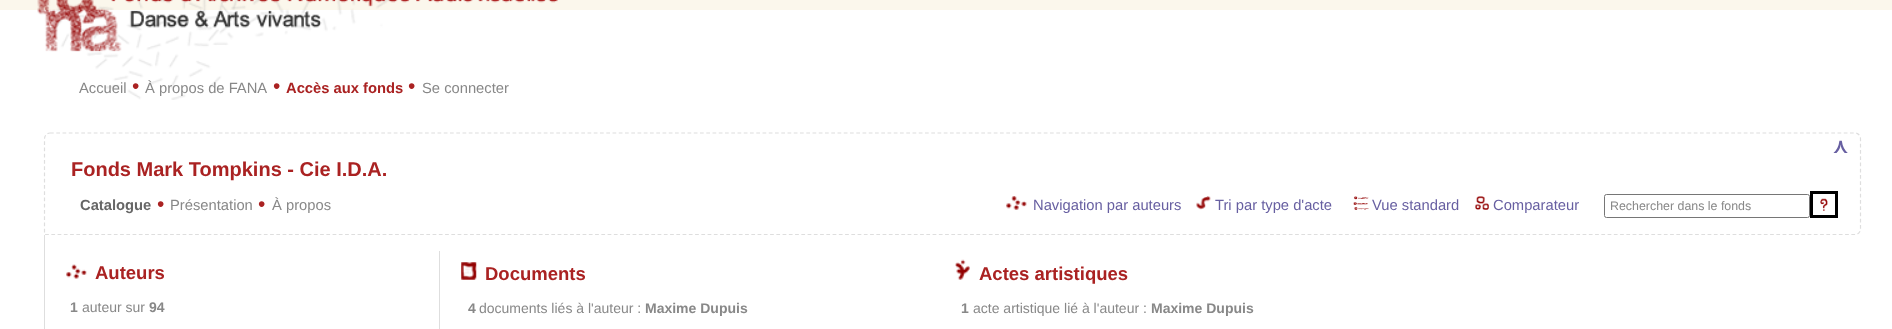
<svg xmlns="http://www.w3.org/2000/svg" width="1892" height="329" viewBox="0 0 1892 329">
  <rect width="100%" height="100%" fill="#ffffff"/>
  <rect x="0" y="0" width="1892" height="10" fill="#fbf7ec"/>
  <image x="37" y="0" width="521" height="100" href="img1.png"/>
  <text x="79" y="93" font-family="Liberation Sans" font-size="14.75" fill="#888888">Accueil</text>
  <text x="132" y="93" font-family="Liberation Sans" font-size="21" fill="#aa2222">•</text>
  <text x="145" y="93" font-family="Liberation Sans" font-size="14.75" fill="#888888">À propos de FANA</text>
  <text x="273" y="93" font-family="Liberation Sans" font-size="21" fill="#aa2222">•</text>
  <text x="286" y="93" font-family="Liberation Sans" font-size="14.75" font-weight="bold" fill="#aa2222">Accès aux fonds</text>
  <text x="408" y="93" font-family="Liberation Sans" font-size="21" fill="#aa2222">•</text>
  <text x="422" y="93" font-family="Liberation Sans" font-size="14.75" fill="#888888">Se connecter</text>
  <path d="M50 133H1855C1858 133 1860.5 135.5 1860.5 139V229C1860.5 232 1858 234.5 1855 234.5H44.5V139C44.5 135.5 47 133 50 133Z" fill="none" stroke="#dedede" stroke-width="1.2" stroke-dasharray="3.75 2.5"/>
  <text x="1833" y="153" font-family="DejaVu Sans" font-size="20" font-weight="bold" fill="#675fa1">⋏</text>
  <text x="71" y="176" font-family="Liberation Sans" font-size="20" font-weight="bold" fill="#aa2222">Fonds Mark Tompkins - Cie I.D.A.</text>
  <text x="80" y="210" font-family="Liberation Sans" font-size="14.75" font-weight="bold" fill="#666666">Catalogue</text>
  <text x="157" y="211" font-family="Liberation Sans" font-size="21" fill="#aa2222">•</text>
  <text x="170" y="210" font-family="Liberation Sans" font-size="14.75" fill="#888888">Présentation</text>
  <text x="258" y="211" font-family="Liberation Sans" font-size="21" fill="#aa2222">•</text>
  <text x="272" y="210" font-family="Liberation Sans" font-size="14.75" fill="#888888">À propos</text>
  <image x="1006" y="196" width="21" height="14" href="img2.png"/>
  <text x="1033" y="210" font-family="Liberation Sans" font-size="14.75" fill="#675fa1">Navigation par auteurs</text>
  <image x="1196" y="196" width="15" height="14" href="img3.png"/>
  <text x="1215" y="210" font-family="Liberation Sans" font-size="14.75" fill="#675fa1">Tri par type d'acte</text>
  <image x="1353" y="196" width="16" height="14" href="img4.png"/>
  <text x="1372" y="210" font-family="Liberation Sans" font-size="14.75" fill="#675fa1">Vue standard</text>
  <image x="1475" y="196" width="14" height="14" href="img5.png"/>
  <text x="1493" y="210" font-family="Liberation Sans" font-size="14.75" fill="#675fa1">Comparateur</text>
  <rect x="1604.5" y="194.5" width="205" height="23" rx="2" fill="none" stroke="#767676"/>
  <text x="1610" y="210" font-family="Liberation Sans" font-size="12.4" fill="#888888">Rechercher dans le fonds</text>
  <image x="1820" y="198" width="8" height="13" href="img6.png"/>
  <rect x="1811.5" y="192.5" width="25" height="24" fill="none" stroke="#000000" stroke-width="3"/>
  <path d="M44 235H439V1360C439 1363 436 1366 432 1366H50C47 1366 44 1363 44 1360ZM45 235H439V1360C439 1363 436 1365 432 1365H50C47 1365 45 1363 45 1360Z" fill="#dedede" fill-rule="evenodd"/>
  <image x="66" y="264" width="21" height="15" href="img7.png"/>
  <text x="95" y="279" font-family="Liberation Sans" font-size="18.5" font-weight="bold" fill="#aa2222">Auteurs</text>
  <text x="70" y="312" font-family="Liberation Sans" font-size="14" font-weight="bold" fill="#888888">1</text>
  <text x="82" y="312" font-family="Liberation Sans" font-size="14" fill="#888888">auteur sur</text>
  <text x="149" y="312" font-family="Liberation Sans" font-size="14" font-weight="bold" fill="#888888">94</text>
  <rect x="439" y="251" width="1" height="78" fill="#dedede"/>
  <image x="461" y="262" width="16" height="18" href="img8.png"/>
  <text x="485" y="280" font-family="Liberation Sans" font-size="18.5" font-weight="bold" fill="#aa2222">Documents</text>
  <text x="468" y="313" font-family="Liberation Sans" font-size="14" font-weight="bold" fill="#888888">4</text>
  <text x="479" y="313" font-family="Liberation Sans" font-size="14" fill="#888888">documents liés à l'auteur :</text>
  <text x="645" y="313" font-family="Liberation Sans" font-size="14" font-weight="bold" fill="#888888">Maxime Dupuis</text>
  <image x="955" y="259" width="15" height="21" href="img9.png"/>
  <text x="979" y="280" font-family="Liberation Sans" font-size="18.5" font-weight="bold" fill="#aa2222">Actes artistiques</text>
  <text x="961" y="313" font-family="Liberation Sans" font-size="14" font-weight="bold" fill="#888888">1</text>
  <text x="973" y="313" font-family="Liberation Sans" font-size="14" fill="#888888">acte artistique lié à l'auteur :</text>
  <text x="1151" y="313" font-family="Liberation Sans" font-size="14" font-weight="bold" fill="#888888">Maxime Dupuis</text>
</svg>
